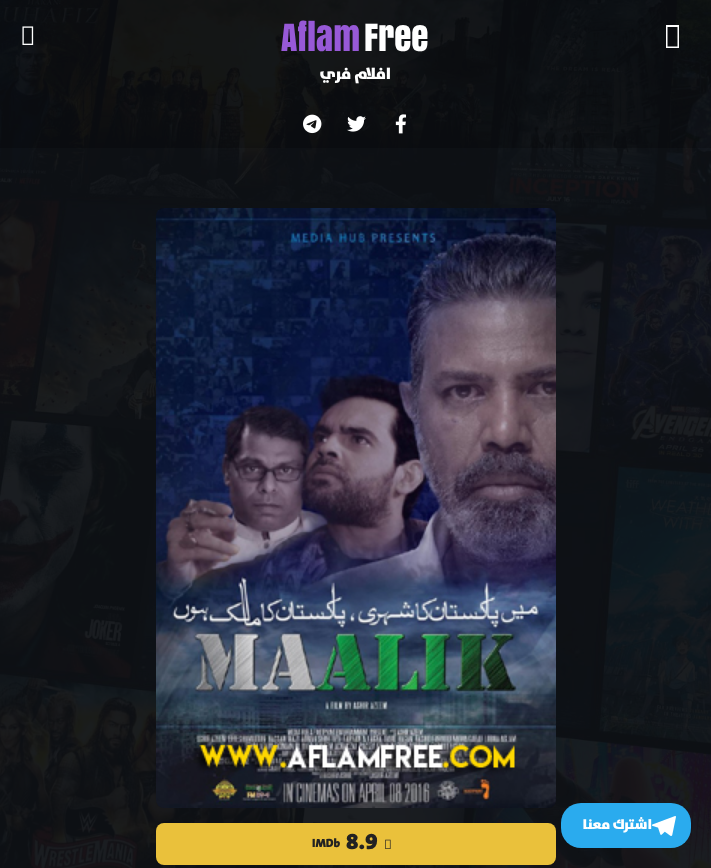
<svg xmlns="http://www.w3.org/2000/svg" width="711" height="868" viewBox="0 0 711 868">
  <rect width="100%" height="100%" fill="#0e1116"/>
  <image x="0" y="0" width="711" height="868" href="img1.png"/>
  <rect x="0" y="0" width="711" height="148" fill="#000000" fill-opacity="0.2"/>
  <path d="M666 48V25H679V48ZM667.5 46.5H677.5V27H667.5Z" fill="#ffffff"/>
  <text x="364" y="51" font-family="Anton" font-size="35" fill="#ffffff">Free</text>
  <text x="281" y="51" font-family="Anton" font-size="35" fill="#9759d7">Aflam</text>
  <text x="391" y="79" font-family="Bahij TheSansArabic" font-size="16" font-weight="900" direction="rtl" fill="#ffffff">افلام فري</text>
  <image x="22" y="26" width="12" height="19" href="img2.png"/>
  <image x="395" y="114" width="12" height="20" href="img3.png"/>
  <image x="347" y="116" width="19" height="16" href="img4.png"/>
  <image x="303" y="114" width="19" height="20" href="img5.png"/>
  <rect x="561" y="803" width="130" height="45" rx="20" fill="#2aabee"/>
  <image x="652" y="816" width="24" height="20" href="img6.png"/>
  <text x="652" y="829" font-family="Bahij TheSansArabic" font-size="14" font-weight="900" direction="rtl" fill="#ffffff">اشترك معنا</text>
  <image x="156" y="208" width="400" height="600" href="img7.png"/>
  <rect x="156" y="823" width="400" height="42" rx="8" fill="#eac13b"/>
  <image x="385" y="839" width="6" height="10" href="img8.png"/>
  <text x="346" y="849" font-family="Bahij TheSansArabic" font-size="22" font-weight="900" fill="#222222">8.9</text>
  <text x="312" y="847" font-family="Bahij TheSansArabic" font-size="12" font-weight="900" fill="#222222">IMDb</text>
</svg>
